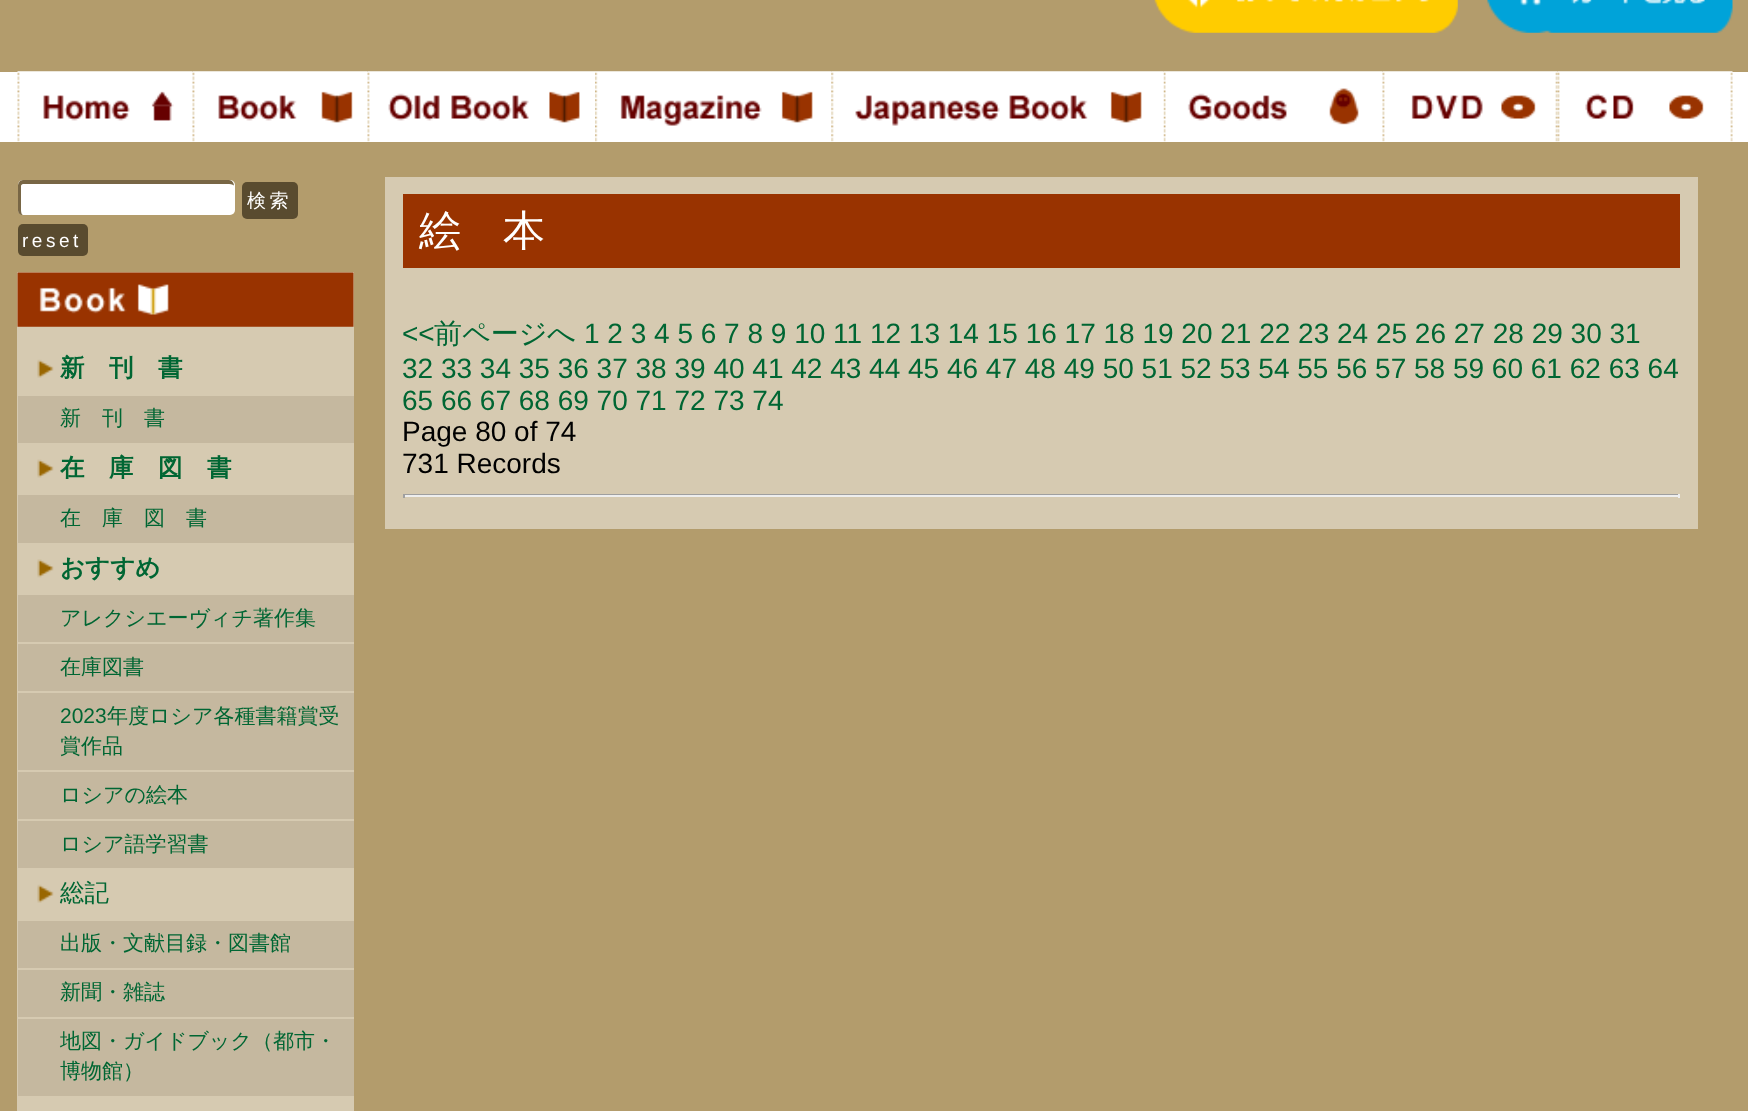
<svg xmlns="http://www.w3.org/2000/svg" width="1748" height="1111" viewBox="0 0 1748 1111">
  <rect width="100%" height="100%" fill="#b39c6c"/>
  <image x="1154" y="0" width="304" height="33" href="img1.png"/>
  <image x="1487" y="0" width="246" height="33" href="img2.png"/>
  <rect x="0" y="72" width="1748" height="70" fill="#ffffff"/>
  <image x="17" y="71" width="176" height="71" href="img3.png"/>
  <image x="192" y="71" width="176" height="71" href="img4.png"/>
  <image x="367" y="71" width="228" height="71" href="img5.png"/>
  <image x="595" y="71" width="237" height="71" href="img6.png"/>
  <image x="831" y="71" width="333" height="71" href="img7.png"/>
  <image x="1163" y="71" width="220" height="71" href="img8.png"/>
  <image x="1382" y="71" width="176" height="71" href="img9.png"/>
  <image x="1557" y="71" width="176" height="71" href="img10.png"/>
  <rect x="18" y="180" width="217" height="35" rx="5" fill="#ffffff"/>
  <path d="M23 180H229C232 180 234 183 234 186V210C234 213 232 215 229 215H23C20 215 18 213 18 210V186C18 183 20 180 23 180ZM23 184H229C232 184 234 185 234 186V210C234 213 232 215 229 215H23C22 215 21 213 21 210V186C21 185 22 184 23 184Z" fill="#786645" fill-rule="evenodd"/>
  <rect x="242" y="182" width="56" height="37" rx="5" fill="#594b2f"/>
  <text x="247" y="207" font-family="WenQuanYi Zen Hei" font-size="19" font-weight="500" letter-spacing="3.5" fill="#ffffff">検索</text>
  <rect x="18" y="224" width="70" height="32" rx="5" fill="#594b2f"/>
  <text x="22" y="247" font-family="Liberation Sans" font-size="19" letter-spacing="3.5" fill="#ffffff">reset</text>
  <rect x="17" y="272" width="337" height="839" fill="#d6cab1"/>
  <image x="17" y="272" width="337" height="55" href="img11.png"/>
  <image x="37" y="359" width="17" height="19" href="img12.png"/>
  <text x="60" y="376" font-family="WenQuanYi Zen Hei" font-size="24.5" font-weight="bold" fill="#006633">新　刊　書</text>
  <rect x="18" y="396" width="336" height="47" fill="#c5b89f"/>
  <text x="60" y="425" font-family="WenQuanYi Zen Hei" font-size="21" font-weight="500" fill="#006633">新　刊　書</text>
  <image x="37" y="459" width="17" height="19" href="img13.png"/>
  <text x="60" y="476" font-family="WenQuanYi Zen Hei" font-size="24.5" font-weight="bold" fill="#006633">在　庫　図　書</text>
  <rect x="18" y="495" width="336" height="48" fill="#c5b89f"/>
  <text x="60" y="525" font-family="WenQuanYi Zen Hei" font-size="21" font-weight="500" fill="#006633">在　庫　図　書</text>
  <image x="37" y="559" width="17" height="19" href="img14.png"/>
  <text x="60" y="576" font-family="WenQuanYi Zen Hei" font-size="24.5" font-weight="bold" fill="#006633">おすすめ</text>
  <rect x="18" y="595" width="336" height="47" fill="#c5b89f"/>
  <text x="60" y="625" font-family="WenQuanYi Zen Hei" font-size="21" font-weight="500" fill="#006633">アレクシエーヴィチ著作集</text>
  <rect x="18" y="644" width="336" height="47" fill="#c5b89f"/>
  <text x="60" y="674" font-family="WenQuanYi Zen Hei" font-size="21" font-weight="500" fill="#006633">在庫図書</text>
  <rect x="18" y="693" width="336" height="77" fill="#c5b89f"/>
  <text x="60" y="723" font-family="Liberation Sans" font-size="21" fill="#006633">2023</text>
  <text x="107" y="723" font-family="WenQuanYi Zen Hei" font-size="21" font-weight="500" fill="#006633">年度ロシア各種書籍賞受</text>
  <text x="60" y="753" font-family="WenQuanYi Zen Hei" font-size="21" font-weight="500" fill="#006633">賞作品</text>
  <rect x="18" y="772" width="336" height="47" fill="#c5b89f"/>
  <text x="60" y="802" font-family="WenQuanYi Zen Hei" font-size="21" font-weight="500" fill="#006633">ロシアの絵本</text>
  <rect x="18" y="821" width="336" height="47" fill="#c5b89f"/>
  <text x="60" y="851" font-family="WenQuanYi Zen Hei" font-size="21" font-weight="500" fill="#006633">ロシア語学習書</text>
  <image x="37" y="884" width="17" height="19" href="img12.png"/>
  <text x="60" y="901" font-family="WenQuanYi Zen Hei" font-size="24.5" font-weight="500" fill="#006633">総記</text>
  <rect x="18" y="921" width="336" height="47" fill="#c5b89f"/>
  <text x="60" y="950" font-family="WenQuanYi Zen Hei" font-size="21" font-weight="500" fill="#006633">出版・文献目録・図書館</text>
  <rect x="18" y="970" width="336" height="47" fill="#c5b89f"/>
  <text x="60" y="999" font-family="WenQuanYi Zen Hei" font-size="21" font-weight="500" fill="#006633">新聞・雑誌</text>
  <rect x="18" y="1019" width="336" height="77" fill="#c5b89f"/>
  <text x="60" y="1048" font-family="WenQuanYi Zen Hei" font-size="21" font-weight="500" fill="#006633">地図・ガイドブック（都市・</text>
  <text x="60" y="1078" font-family="WenQuanYi Zen Hei" font-size="21" font-weight="500" fill="#006633">博物館）</text>
  <rect x="385" y="177" width="1313" height="352" fill="#d6cab1"/>
  <rect x="403" y="194" width="1277" height="74" fill="#993300"/>
  <text x="419" y="245" font-family="WenQuanYi Zen Hei" font-size="42" font-weight="500" fill="#ffffff">絵　本</text>
  <text x="402" y="343" font-family="Liberation Sans" font-size="28" fill="#006633">&lt;&lt;</text>
  <text x="434" y="343" font-family="WenQuanYi Zen Hei" font-size="28" font-weight="500" fill="#006633">前ページへ</text>
  <text x="584" y="343" font-family="Liberation Sans" font-size="28" fill="#006633">1 2 3 4 5 6 7 8 9 10 11 12 13 14 15 16 17 18 19 20 21 22 23 24 25 26 27 28 29 30 31</text>
  <text x="402" y="378" font-family="Liberation Sans" font-size="28" fill="#006633">32 33 34 35 36 37 38 39 40 41 42 43 44 45 46 47 48 49 50 51 52 53 54 55 56 57 58 59 60 61 62 63 64</text>
  <text x="402" y="410" font-family="Liberation Sans" font-size="28" fill="#006633">65 66 67 68 69 70 71 72 73 74</text>
  <text x="402" y="441" font-family="Liberation Sans" font-size="28" fill="#000000">Page 80 of 74</text>
  <text x="402" y="473" font-family="Liberation Sans" font-size="28" fill="#000000">731 Records</text>
  <rect x="403" y="494" width="1277" height="1" fill="#9f9f9f"/>
  <rect x="1678" y="494" width="2" height="4" fill="#eeeeee"/>
  <rect x="403" y="495" width="1277" height="2" fill="#eeeeee"/>
  <rect x="403" y="494" width="2" height="4" fill="#9f9f9f"/>
</svg>
